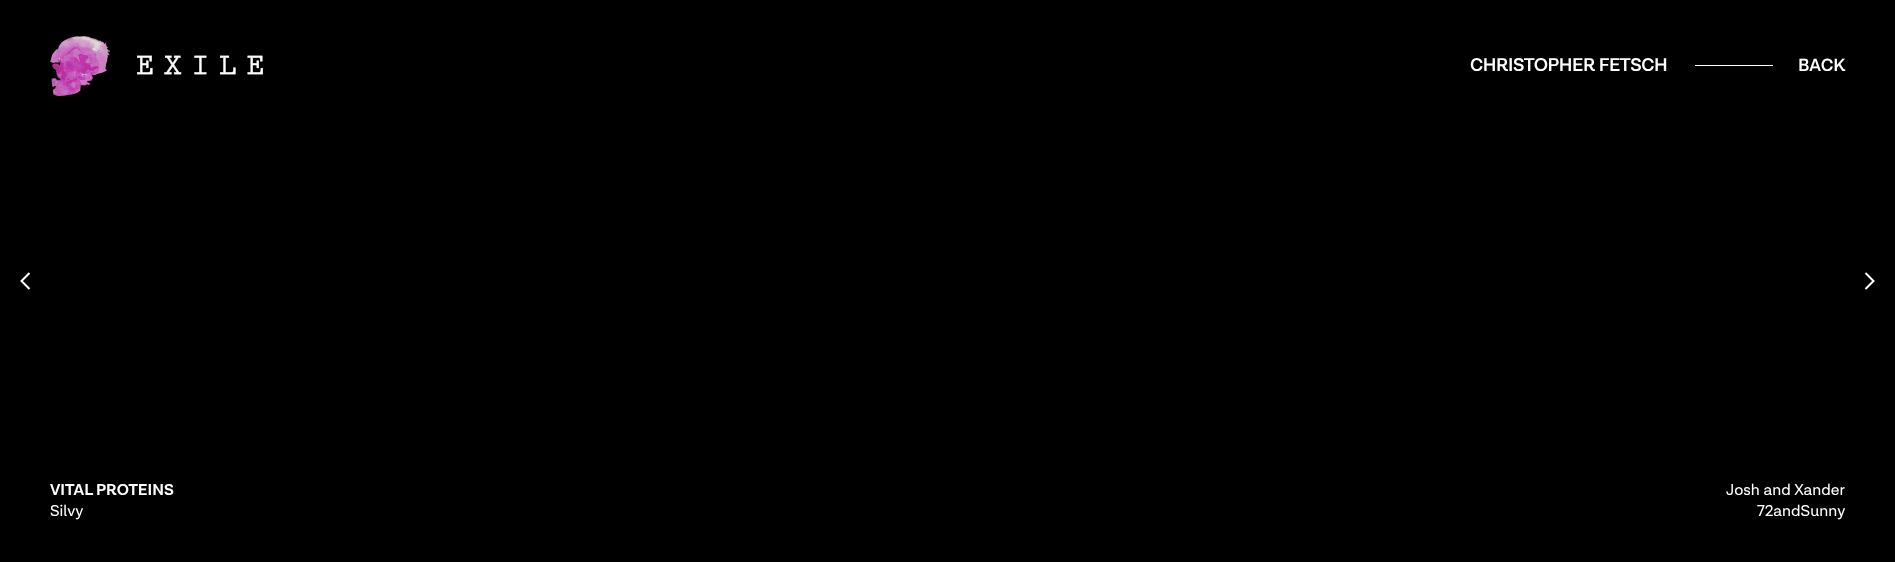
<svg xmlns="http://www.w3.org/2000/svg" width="1895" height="562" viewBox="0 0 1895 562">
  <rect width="100%" height="100%" fill="#000000"/>
  <image x="50" y="36" width="60" height="60" href="img1.png"/>
  <image x="137" y="55" width="126" height="20" href="img2.png"/>
  <text x="1470" y="71" font-family="'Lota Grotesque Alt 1'" font-size="18.75" font-weight="600" letter-spacing="-0.4" fill="#ffffff">CHRISTOPHER FETSCH</text>
  <rect x="1695" y="65" width="78" height="1" fill="#ffffff"/>
  <text x="1798" y="71" font-family="'Lota Grotesque Alt 1'" font-size="18" font-weight="600" fill="#ffffff">BACK</text>
  <path d="M29.5 289L21.5 281L29.5 273" fill="none" stroke="#ffffff" stroke-width="2"/>
  <path d="M1865.5 273L1873.5 281L1865.5 289" fill="none" stroke="#ffffff" stroke-width="2"/>
  <text x="50" y="495" font-family="'Lota Grotesque Alt 1'" font-size="16" font-weight="bold" fill="#ffffff">VITAL PROTEINS</text>
  <text x="50" y="516" font-family="'Lota Grotesque Alt 1'" font-size="16" fill="#ffffff">Silvy</text>
  <text x="1726" y="495" font-family="'Lota Grotesque Alt 1'" font-size="16" fill="#ffffff">Josh and Xander</text>
  <text x="1757" y="516" font-family="'Lota Grotesque Alt 1'" font-size="16" fill="#ffffff">72andSunny</text>
</svg>
